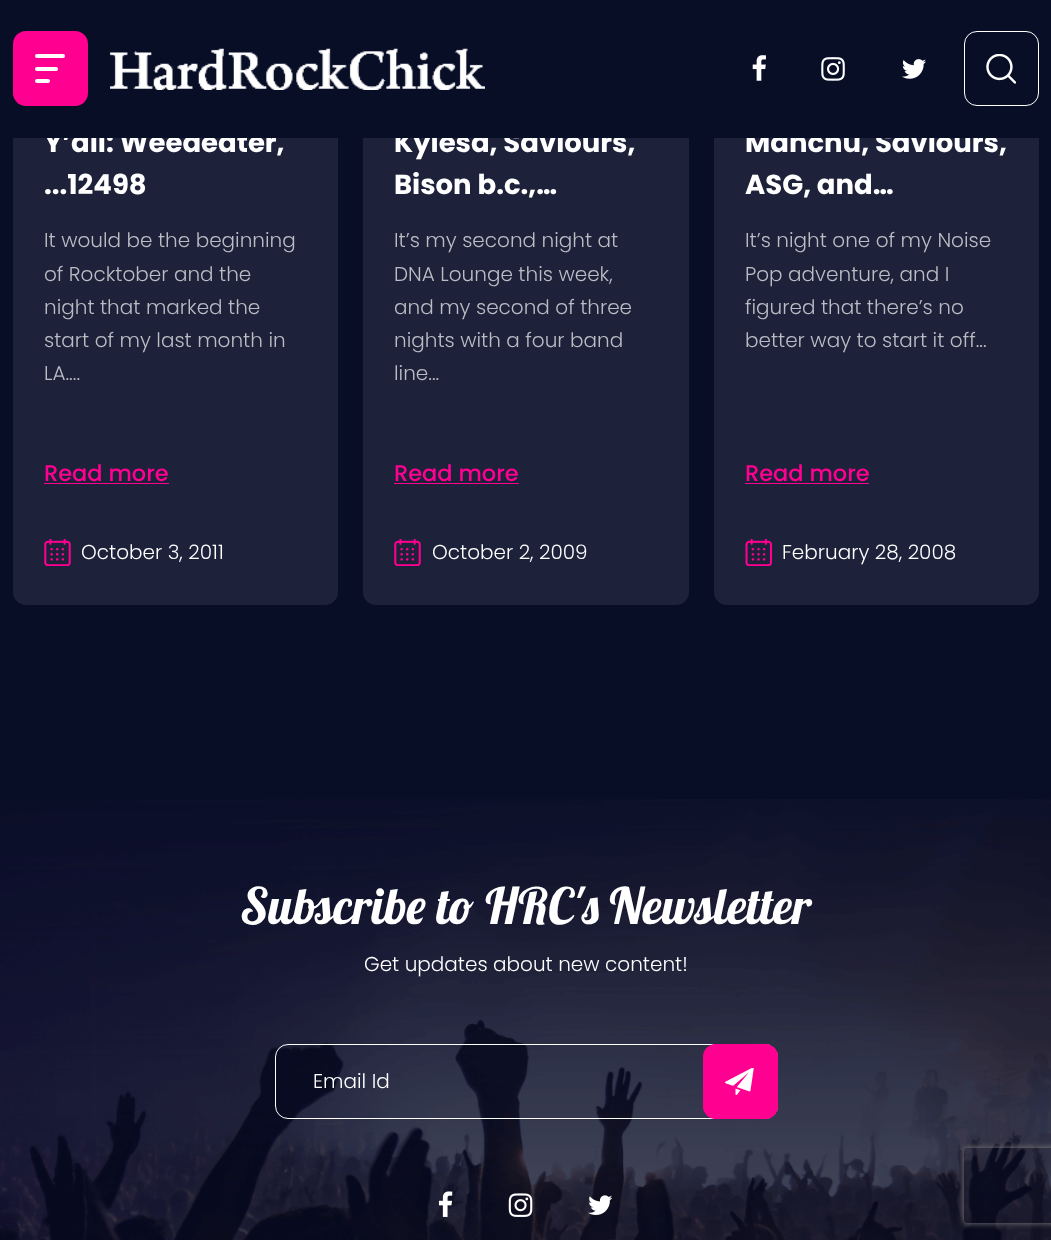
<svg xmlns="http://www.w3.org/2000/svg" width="1051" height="1240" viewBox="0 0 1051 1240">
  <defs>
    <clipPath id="clip1"><path d="M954 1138H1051V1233H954ZM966.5 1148H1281.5C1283 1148 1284 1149 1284 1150.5V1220.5C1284 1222 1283 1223 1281.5 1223H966.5C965 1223 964 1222 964 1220.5V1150.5C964 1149 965 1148 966.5 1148Z" clip-rule="evenodd"/></clipPath>
    <filter id="blur1" x="-50%" y="-200%" width="200%" height="500%"><feGaussianBlur stdDeviation="3"/></filter>
  </defs>
  <rect width="100%" height="100%" fill="#090e27"/>
  <rect x="13" y="49" width="325" height="556" rx="13" fill="#1d223a"/>
  <text x="44" y="152" font-family="Poppins" font-size="27.5" font-weight="bold" fill="#ffffff">Y’all: Weedeater,</text>
  <rect x="363" y="49" width="326" height="556" rx="13" fill="#1d223a"/>
  <text x="394" y="152" font-family="Poppins" font-size="27.5" font-weight="bold" fill="#ffffff">Kylesa, Saviours,</text>
  <rect x="714" y="49" width="325" height="556" rx="13" fill="#1d223a"/>
  <text x="745" y="152" font-family="Poppins" font-size="27.5" font-weight="bold" fill="#ffffff">Manchu, Saviours,</text>
  <rect x="13" y="49" width="1026" height="89" fill="#090e27"/>
  <rect x="13" y="31" width="75" height="75" rx="13" fill="#ff0090"/>
  <rect x="35" y="54" width="30" height="4" rx="2" fill="#ffffff"/>
  <rect x="35" y="67" width="23" height="4" rx="2" fill="#ffffff"/>
  <rect x="35" y="79" width="15" height="4" rx="2" fill="#ffffff"/>
  <image x="110" y="48" width="375" height="42" href="img1.png"/>
  <image x="752" y="55" width="14" height="26" href="img2.png"/>
  <image x="821" y="57" width="24" height="24" href="img3.png"/>
  <image x="902" y="59" width="24" height="20" href="img4.png"/>
  <rect x="964.5" y="31.5" width="74" height="74" rx="12.5" fill="none" stroke="#ffffff"/>
  <image x="986" y="54" width="30" height="30" href="img5.png"/>
  <text x="44" y="194" font-family="Poppins" font-size="27.5" font-weight="bold" fill="#ffffff">...12498</text>
  <text x="44" y="247" font-family="Poppins" font-size="20" font-weight="300" fill="#bbbdc4">It would be the beginning</text>
  <text x="44" y="281" font-family="Poppins" font-size="20" font-weight="300" fill="#bbbdc4">of Rocktober and the</text>
  <text x="44" y="314" font-family="Poppins" font-size="20" font-weight="300" fill="#bbbdc4">night that marked the</text>
  <text x="44" y="347" font-family="Poppins" font-size="20" font-weight="300" fill="#bbbdc4">start of my last month in</text>
  <text x="44" y="380" font-family="Poppins" font-size="20" font-weight="300" fill="#bbbdc4">LA....</text>
  <text x="44" y="481" font-family="Poppins" font-size="22.5" font-weight="500" fill="#ff0090">Read more</text>
  <rect x="44" y="483" width="125" height="1" fill="#ff0090"/>
  <image x="44" y="539" width="27" height="27" href="img6.png"/>
  <text x="81" y="559" font-family="Poppins" font-size="20" font-weight="300" fill="#ffffff">October 3, 2011</text>
  <text x="394" y="194" font-family="Poppins" font-size="27.5" font-weight="bold" fill="#ffffff">Bison b.c.,…</text>
  <text x="394" y="247" font-family="Poppins" font-size="20" font-weight="300" fill="#bbbdc4">It’s my second night at</text>
  <text x="394" y="281" font-family="Poppins" font-size="20" font-weight="300" fill="#bbbdc4">DNA Lounge this week,</text>
  <text x="394" y="314" font-family="Poppins" font-size="20" font-weight="300" fill="#bbbdc4">and my second of three</text>
  <text x="394" y="347" font-family="Poppins" font-size="20" font-weight="300" fill="#bbbdc4">nights with a four band</text>
  <text x="394" y="380" font-family="Poppins" font-size="20" font-weight="300" fill="#bbbdc4">line...</text>
  <text x="394" y="481" font-family="Poppins" font-size="22.5" font-weight="500" fill="#ff0090">Read more</text>
  <rect x="394" y="483" width="125" height="1" fill="#ff0090"/>
  <image x="394" y="539" width="27" height="27" href="img6.png"/>
  <text x="432" y="559" font-family="Poppins" font-size="20" font-weight="300" fill="#ffffff">October 2, 2009</text>
  <text x="745" y="194" font-family="Poppins" font-size="27.5" font-weight="bold" fill="#ffffff">ASG, and…</text>
  <text x="745" y="247" font-family="Poppins" font-size="20" font-weight="300" fill="#bbbdc4">It’s night one of my Noise</text>
  <text x="745" y="281" font-family="Poppins" font-size="20" font-weight="300" fill="#bbbdc4">Pop adventure, and I</text>
  <text x="745" y="314" font-family="Poppins" font-size="20" font-weight="300" fill="#bbbdc4">figured that there’s no</text>
  <text x="745" y="347" font-family="Poppins" font-size="20" font-weight="300" fill="#bbbdc4">better way to start it off...</text>
  <text x="745" y="481" font-family="Poppins" font-size="22.5" font-weight="500" fill="#ff0090">Read more</text>
  <rect x="745" y="483" width="124" height="1" fill="#ff0090"/>
  <image x="745" y="539" width="27" height="27" href="img7.png"/>
  <text x="782" y="559" font-family="Poppins" font-size="20" font-weight="300" fill="#ffffff">February 28, 2008</text>
  <image x="0" y="799" width="1051" height="441" href="img8.png"/>
  <text x="240" y="924" font-family="Lobster" font-size="50" fill="#ffffff">Subscribe to HRC's Newsletter</text>
  <text x="364" y="971" font-family="Poppins" font-size="20" font-weight="300" fill="#ffffff">Get updates about new content!</text>
  <rect x="275.5" y="1044.5" width="502" height="74" rx="12.5" fill="none" stroke="#ffffff"/>
  <text x="313" y="1088" font-family="Poppins" font-size="20" font-weight="300" fill="#ffffff">Email Id</text>
  <rect x="703" y="1044" width="75" height="75" rx="13" fill="#ff0090"/>
  <image x="725" y="1068" width="29" height="27" href="img9.png"/>
  <rect x="703.5" y="1044.5" width="74" height="74" rx="12.5" fill="none" stroke="#ff0090"/>
  <image x="438" y="1191" width="15" height="26" href="img10.png"/>
  <image x="508" y="1193" width="25" height="24" href="img11.png"/>
  <image x="588" y="1195" width="25" height="20" href="img12.png"/>
  <g clip-path="url(#clip1)">
    <rect x="964" y="1148" width="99" height="75" rx="2.5" fill="#808080" filter="url(#blur1)"/>
  </g>
</svg>
